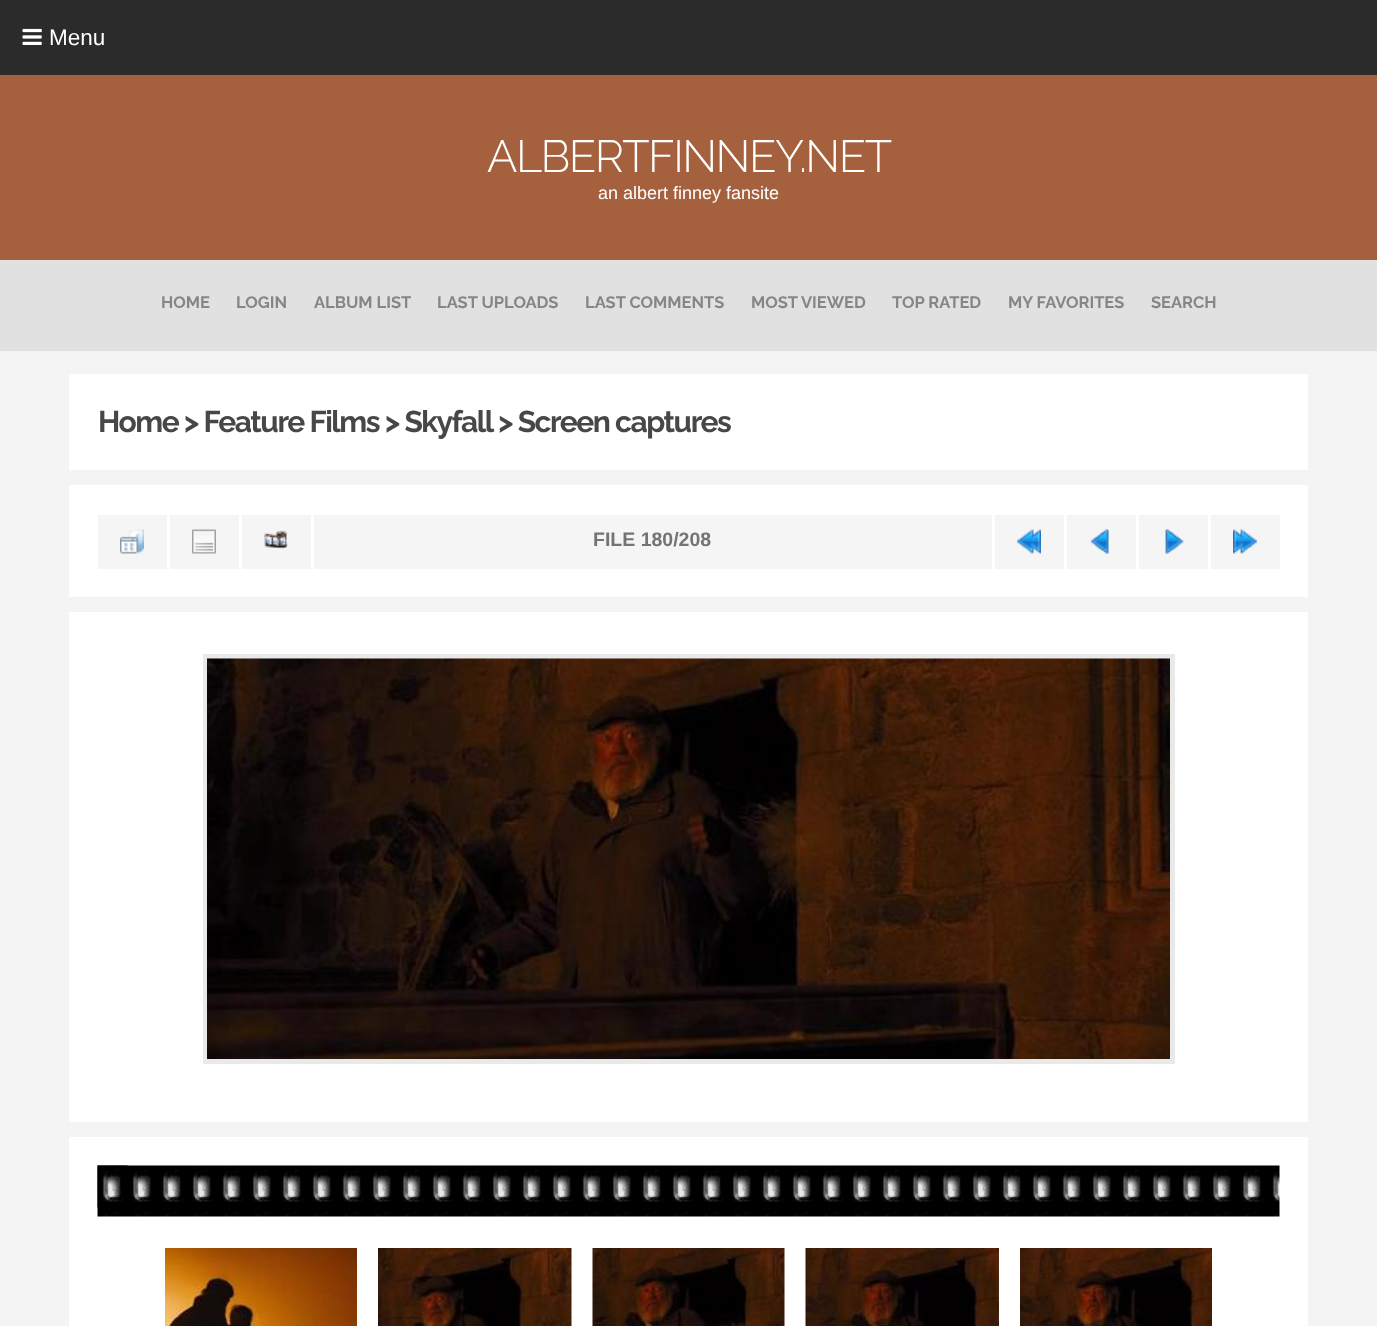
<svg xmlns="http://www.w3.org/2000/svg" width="1377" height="1326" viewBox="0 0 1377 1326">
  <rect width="100%" height="100%" fill="#f4f4f4"/>
  <rect x="0" y="0" width="1377" height="75" fill="#2b2b2b"/>
  <image x="22" y="28" width="20" height="17" href="img1.png"/>
  <text x="49" y="45" font-family="Arimo" font-size="22.5" fill="#ffffff">Menu</text>
  <rect x="0" y="75" width="1377" height="185" fill="#a5603d"/>
  <text x="487" y="172" font-family="Raleway" font-size="45" font-weight="300" letter-spacing="-1.5" fill="#ffffff">ALBERTFINNEY.NET</text>
  <text x="598" y="199" font-family="Arimo" font-size="18" fill="#ffffff">an albert finney fansite</text>
  <rect x="0" y="260" width="1377" height="91" fill="#e1e1e1"/>
  <text x="161" y="308" font-family="Raleway" font-size="16.5" font-weight="bold" fill="#868686">HOME</text>
  <text x="236" y="308" font-family="Raleway" font-size="16.5" font-weight="bold" fill="#868686">LOGIN</text>
  <text x="314" y="308" font-family="Raleway" font-size="16.5" font-weight="bold" fill="#868686">ALBUM LIST</text>
  <text x="437" y="308" font-family="Raleway" font-size="16.5" font-weight="bold" fill="#868686">LAST UPLOADS</text>
  <text x="585" y="308" font-family="Raleway" font-size="16.5" font-weight="bold" fill="#868686">LAST COMMENTS</text>
  <text x="751" y="308" font-family="Raleway" font-size="16.5" font-weight="bold" fill="#868686">MOST VIEWED</text>
  <text x="892" y="308" font-family="Raleway" font-size="16.5" font-weight="bold" fill="#868686">TOP RATED</text>
  <text x="1008" y="308" font-family="Raleway" font-size="16.5" font-weight="bold" fill="#868686">MY FAVORITES</text>
  <text x="1151" y="308" font-family="Raleway" font-size="16.5" font-weight="bold" fill="#868686">SEARCH</text>
  <rect x="69" y="374" width="1239" height="96" fill="#ffffff"/>
  <text x="98" y="432" font-family="Raleway" font-size="30" font-weight="bold" letter-spacing="-1.5" fill="#474747">Home &gt; Feature Films &gt; Skyfall</text>
  <text x="498" y="432" font-family="Raleway" font-size="30" font-weight="bold" letter-spacing="-1.5" fill="#474747">&gt; Screen captures</text>
  <rect x="69" y="485" width="1239" height="112" fill="#ffffff"/>
  <rect x="98" y="515" width="69" height="54" fill="#f5f5f5"/>
  <image x="120" y="529" width="24" height="25" href="img2.png"/>
  <rect x="170" y="515" width="69" height="54" fill="#f5f5f5"/>
  <image x="192" y="529" width="24" height="25" href="img3.png"/>
  <rect x="242" y="515" width="69" height="54" fill="#f5f5f5"/>
  <image x="264" y="530" width="24" height="19" href="img4.png"/>
  <rect x="314" y="515" width="678" height="54" fill="#f5f5f5"/>
  <text x="593" y="546" font-family="Arimo" font-size="19.5" font-weight="bold" fill="#747474">FILE 180/208</text>
  <rect x="995" y="515" width="69" height="54" fill="#f5f5f5"/>
  <image x="1017" y="529" width="24" height="25" href="img5.png"/>
  <rect x="1067" y="515" width="69" height="54" fill="#f5f5f5"/>
  <image x="1090" y="529" width="19" height="25" href="img6.png"/>
  <rect x="1139" y="515" width="69" height="54" fill="#f5f5f5"/>
  <image x="1165" y="529" width="19" height="25" href="img7.png"/>
  <rect x="1211" y="515" width="69" height="54" fill="#f5f5f5"/>
  <image x="1233" y="529" width="24" height="25" href="img8.png"/>
  <rect x="69" y="612" width="1239" height="510" fill="#ffffff"/>
  <rect x="205.5" y="656.5" width="967" height="405" fill="none" stroke="#e9e9e9" stroke-width="5"/>
  <image x="207" y="658" width="963" height="401" href="img9.png"/>
  <rect x="69" y="1137" width="1239" height="189" fill="#ffffff"/>
  <image x="97" y="1165" width="1183" height="52" href="img10.png"/>
  <image x="97" y="1165" width="31" height="43" href="img11.png"/>
  <image x="165" y="1248" width="192" height="78" href="img12.png"/>
  <image x="378" y="1248" width="194" height="78" href="img13.png"/>
  <image x="592" y="1248" width="193" height="78" href="img14.png"/>
  <image x="805" y="1248" width="194" height="78" href="img15.png"/>
  <image x="1020" y="1248" width="192" height="78" href="img16.png"/>
</svg>
